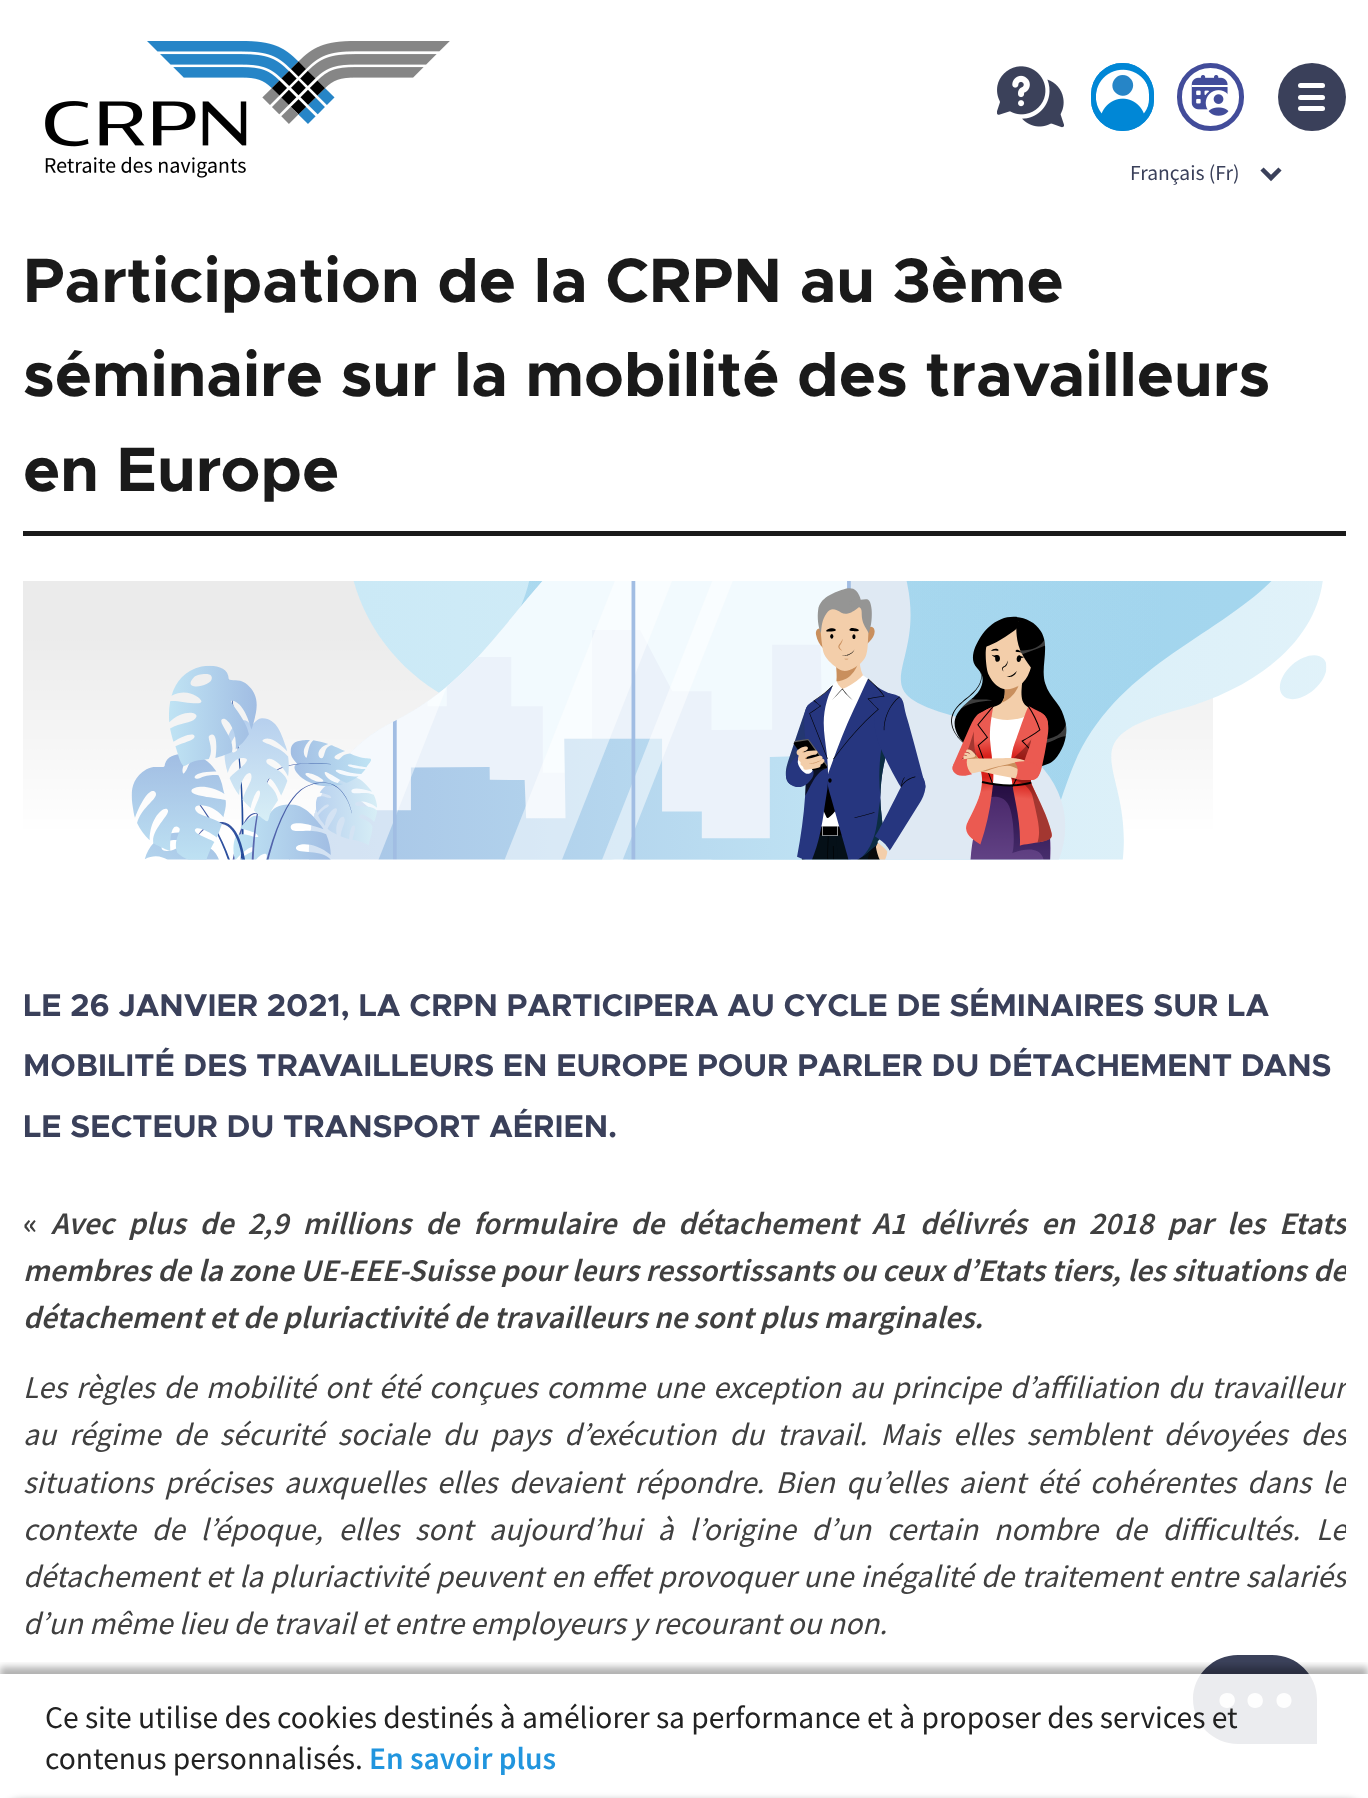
<svg xmlns="http://www.w3.org/2000/svg" width="1368" height="1798" viewBox="0 0 1368 1798">
  <defs>
    <clipPath id="clip1"><rect x="23" y="914" width="1323" height="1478"/></clipPath>
    <clipPath id="clip2"><rect x="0" y="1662" width="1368" height="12"/></clipPath>
    <filter id="blur1" x="-50%" y="-200%" width="200%" height="500%"><feGaussianBlur stdDeviation="3.5"/></filter>
  </defs>
  <rect width="100%" height="100%" fill="#ffffff"/>
  <image x="147" y="41" width="303" height="83" href="img1.png"/>
  <image x="45" y="101" width="202" height="77" href="img2.png"/>
  <circle cx="1312" cy="97" r="34" fill="#3a405a"/>
  <rect x="1298" y="83" width="27" height="5" rx="2.5" fill="#ffffff"/>
  <rect x="1298" y="95" width="27" height="5" rx="2.5" fill="#ffffff"/>
  <rect x="1298" y="106" width="27" height="5" rx="2.5" fill="#ffffff"/>
  <image x="997" y="66" width="67" height="62" href="img3.png"/>
  <rect x="1091" y="63" width="63" height="68" rx="31.5" fill="#0087d6"/>
  <image x="1096" y="69" width="58" height="45" href="img4.png"/>
  <rect x="1093.5" y="65.5" width="58" height="63" rx="29" fill="none" stroke="#0087d6" stroke-width="5"/>
  <image x="1191" y="75" width="38" height="41" href="img5.png"/>
  <rect x="1179.5" y="65.5" width="62" height="63" rx="31" fill="none" stroke="#424c9a" stroke-width="5"/>
  <path d="M1262 169L1271 178L1280 169" fill="none" stroke="#3a405a" stroke-width="4.5"/>
  <text x="1130" y="180" font-family="Source Sans Pro" font-size="21.5" fill="#3a405a">Français (Fr)</text>
  <rect x="23" y="531" width="1323" height="5" fill="#1a1a1a"/>
  <text x="23" y="302" font-family="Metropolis" font-size="63" font-weight="bold" fill="#1a1a1a">Participation de la CRPN au 3ème</text>
  <text x="23" y="396" font-family="Metropolis" font-size="63" font-weight="bold" fill="#1a1a1a">séminaire sur la mobilité des travailleurs</text>
  <text x="23" y="491" font-family="Metropolis" font-size="63" font-weight="bold" fill="#1a1a1a">en Europe</text>
  <image x="23" y="581" width="1304" height="279" href="img6.png"/>
  <text x="23" y="1016" font-family="Metropolis" font-size="31.5" font-weight="bold" fill="#3a405a">LE 26 JANVIER 2021, LA CRPN PARTICIPERA AU CYCLE DE SÉMINAIRES SUR LA</text>
  <text x="23" y="1076" font-family="Metropolis" font-size="31.5" font-weight="bold" fill="#3a405a">MOBILITÉ DES TRAVAILLEURS EN EUROPE POUR PARLER DU DÉTACHEMENT DANS</text>
  <text x="23" y="1137" font-family="Metropolis" font-size="31.5" font-weight="bold" fill="#3a405a">LE SECTEUR DU TRANSPORT AÉRIEN.</text>
  <text x="23" y="1234" font-family="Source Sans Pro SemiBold" font-size="31.5" font-weight="600" fill="#404040">«</text>
  <g clip-path="url(#clip1)">
    <text x="51" y="1234" word-spacing="7.75" font-family="Source Sans Pro SemiBold" font-size="31.5" font-weight="600" font-style="italic" fill="#404040">Avec plus de 2,9 millions de formulaire de détachement A1 délivrés en 2018 par les Etats</text>
    <text x="23" y="1281" word-spacing="0.25" font-family="Source Sans Pro SemiBold" font-size="31.5" font-weight="600" font-style="italic" fill="#404040">membres de la zone UE-EEE-Suisse pour leurs ressortissants ou ceux d’Etats tiers, les situations de</text>
  </g>
  <text x="23" y="1328" font-family="Source Sans Pro SemiBold" font-size="31.5" font-weight="600" font-style="italic" fill="#404040">détachement et de pluriactivité de travailleurs ne sont plus marginales.</text>
  <g clip-path="url(#clip1)">
    <text x="23" y="1398" word-spacing="2.75" font-family="Source Sans Pro" font-size="31.5" font-style="italic" fill="#404040">Les règles de mobilité ont été conçues comme une exception au principe d’affiliation du travailleur</text>
    <text x="23" y="1445" word-spacing="6.75" font-family="Source Sans Pro" font-size="31.5" font-style="italic" fill="#404040">au régime de sécurité sociale du pays d’exécution du travail. Mais elles semblent dévoyées des</text>
    <text x="23" y="1493" word-spacing="5.1" font-family="Source Sans Pro" font-size="31.5" font-style="italic" fill="#404040">situations précises auxquelles elles devaient répondre. Bien qu’elles aient été cohérentes dans le</text>
    <text x="23" y="1540" word-spacing="9.5" font-family="Source Sans Pro" font-size="31.5" font-style="italic" fill="#404040">contexte de l’époque, elles sont aujourd’hui à l’origine d’un certain nombre de difficultés. Le</text>
    <text x="23" y="1587" word-spacing="1" font-family="Source Sans Pro" font-size="31.5" font-style="italic" fill="#404040">détachement et la pluriactivité peuvent en effet provoquer une inégalité de traitement entre salariés</text>
  </g>
  <text x="23" y="1634" font-family="Source Sans Pro" font-size="31.5" font-style="italic" fill="#404040">d’un même lieu de travail et entre employeurs y recourant ou non.</text>
  <rect x="1219" y="1693" width="73" height="15" fill="#f4f4f6"/>
  <path d="M1284 1708C1274 1708 1274 1693 1284 1693C1294 1693 1294 1708 1284 1708M1255 1708C1245 1708 1245 1693 1255 1693C1265 1693 1266 1708 1255 1708M1227 1708C1217 1708 1217 1693 1227 1693C1238 1693 1237 1708 1227 1708M1272 1655H1238C1213 1655 1193 1675 1193 1699C1193 1724 1213 1744 1238 1744H1317V1699C1317 1675 1297 1655 1272 1655" fill="#3b415a"/>
  <g clip-path="url(#clip2)">
    <rect x="0" y="1667" width="1368" height="126" fill="#000000" fill-opacity="0.3" filter="url(#blur1)"/>
  </g>
  <rect x="1193" y="1674" width="124" height="70" fill="#ffffff" fill-opacity="0.9"/>
  <text x="45" y="1728" font-family="Source Sans Pro" font-size="31.5" fill="#222222">Ce site utilise des cookies destinés à améliorer sa performance et à proposer des services et</text>
  <text x="45" y="1769" font-family="Source Sans Pro" font-size="31.5" fill="#222222">contenus personnalisés.</text>
  <text x="369" y="1769" font-family="Source Sans Pro SemiBold" font-size="31.5" font-weight="600" fill="#2195de">En savoir plus</text>
  <rect x="0" y="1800" width="1368" height="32" rx="23" fill="#000000" fill-opacity="0.3" filter="url(#blur1)"/>
</svg>
